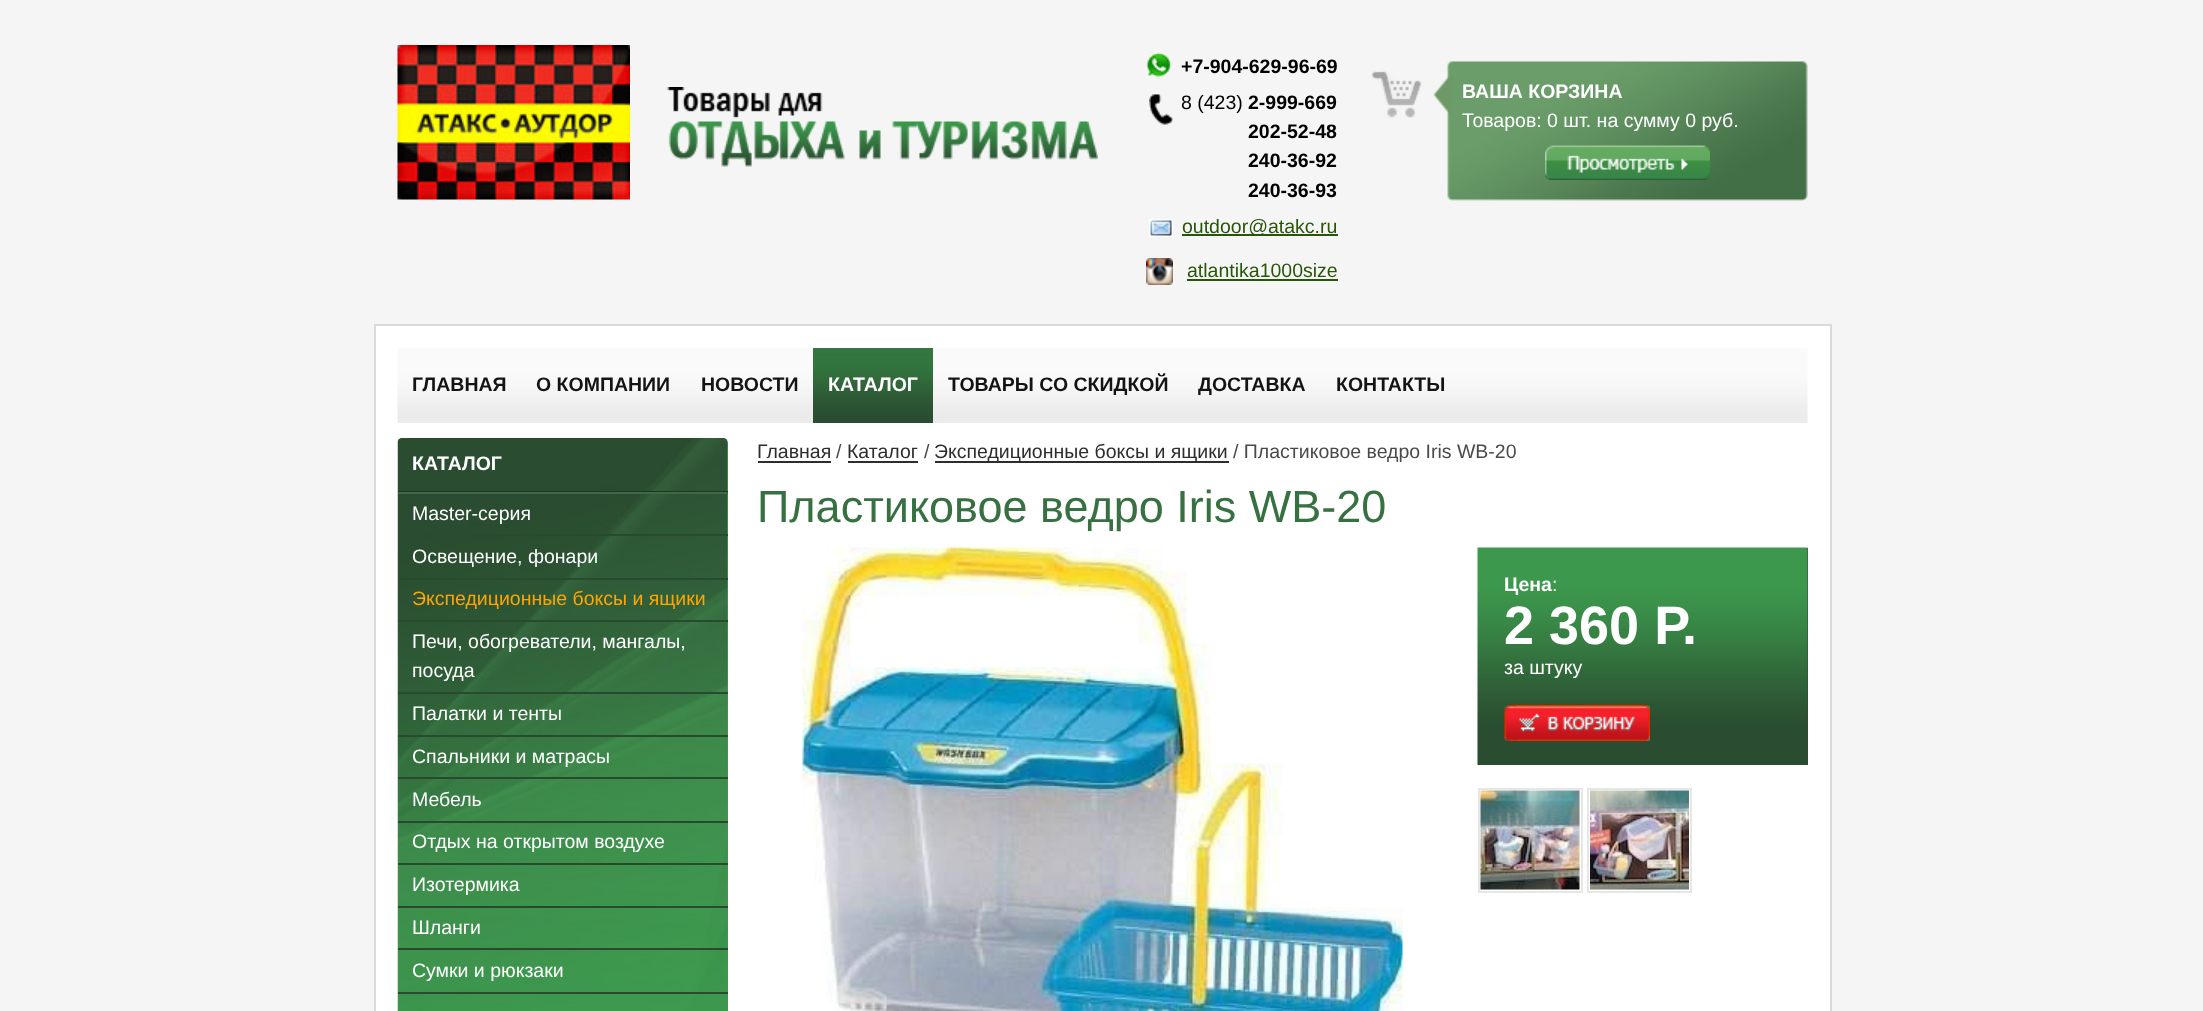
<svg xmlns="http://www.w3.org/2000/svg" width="2203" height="1011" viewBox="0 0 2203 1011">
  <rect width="100%" height="100%" fill="#f5f5f5"/>
  <image x="397" y="45" width="233" height="155" href="img1.png"/>
  <image x="667" y="87" width="431" height="80" href="img2.png"/>
  <image x="1146" y="51" width="27" height="27" href="img3.png"/>
  <text x="1181" y="73" font-family="Liberation Sans" font-size="19.5" font-weight="bold" fill="#000000">+7-904-629-96-69</text>
  <image x="1149" y="94" width="24" height="31" href="img4.png"/>
  <text x="1181" y="109" font-family="Liberation Sans" font-size="19.5" fill="#000000">8 (423)</text>
  <text x="1248" y="109" font-family="Liberation Sans" font-size="19.5" font-weight="bold" fill="#000000">2-999-669</text>
  <text x="1248" y="138" font-family="Liberation Sans" font-size="19.5" font-weight="bold" fill="#000000">202-52-48</text>
  <text x="1248" y="167" font-family="Liberation Sans" font-size="19.5" font-weight="bold" fill="#000000">240-36-92</text>
  <text x="1248" y="197" font-family="Liberation Sans" font-size="19.5" font-weight="bold" fill="#000000">240-36-93</text>
  <image x="1149" y="219" width="24" height="18" href="img5.png"/>
  <rect x="1182" y="234" width="156" height="2" fill="#285609"/>
  <text x="1182" y="233" font-family="Liberation Sans" font-size="19.5" fill="#285609">outdoor@atakc.ru</text>
  <image x="1146" y="258" width="27" height="27" href="img6.png"/>
  <text x="1187" y="277" font-family="Liberation Sans" font-size="19.5" fill="#285609">atlantika1000size</text>
  <rect x="1187" y="279" width="151" height="2" fill="#285609"/>
  <image x="1372" y="61" width="436" height="140" href="img7.png"/>
  <text x="1462" y="98" font-family="Liberation Sans" font-size="19.5" font-weight="bold" fill="#ffffff">ВАША КОРЗИНА</text>
  <text x="1462" y="127" font-family="Liberation Sans" font-size="19.5" fill="#ffffff">Товаров: 0 шт. на сумму 0 руб.</text>
  <image x="1545" y="145" width="165" height="35" href="img8.png"/>
  <rect x="375" y="325" width="1456" height="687" fill="#ffffff" stroke="#dadada" stroke-width="2"/>
  <image x="397" y="348" width="1411" height="75" href="img9.png"/>
  <text x="412" y="391" font-family="Liberation Sans" font-size="19.5" font-weight="bold" fill="#141414">ГЛАВНАЯ</text>
  <text x="536" y="391" font-family="Liberation Sans" font-size="19.5" font-weight="bold" fill="#141414">О КОМПАНИИ</text>
  <text x="701" y="391" font-family="Liberation Sans" font-size="19.5" font-weight="bold" fill="#141414">НОВОСТИ</text>
  <image x="813" y="348" width="120" height="75" href="img10.png"/>
  <text x="828" y="391" font-family="Liberation Sans" font-size="19.5" font-weight="bold" fill="#ffffff">КАТАЛОГ</text>
  <text x="948" y="391" font-family="Liberation Sans" font-size="19.5" font-weight="bold" fill="#141414">ТОВАРЫ СО СКИДКОЙ</text>
  <text x="1198" y="391" font-family="Liberation Sans" font-size="19.5" font-weight="bold" fill="#141414">ДОСТАВКА</text>
  <text x="1336" y="391" font-family="Liberation Sans" font-size="19.5" font-weight="bold" fill="#141414">КОНТАКТЫ</text>
  <rect x="398" y="438" width="330" height="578" rx="5" fill="#3c994e"/>
  <image x="397" y="438" width="331" height="573" href="img11.png"/>
  <rect x="398" y="491" width="330" height="1" fill="#1b3b20"/>
  <text x="412" y="470" font-family="Liberation Sans" font-size="19.5" font-weight="bold" fill="#ffffff">КАТАЛОГ</text>
  <rect x="398" y="492" width="330" height="2" fill="#426648"/>
  <rect x="470" y="534" width="258" height="2" fill="#284a2f"/>
  <text x="412" y="520" font-family="Liberation Sans" font-size="19.5" fill="#ffffff">Master-серия</text>
  <rect x="398" y="578" width="330" height="2" fill="#284a2f"/>
  <text x="412" y="563" font-family="Liberation Sans" font-size="19.5" fill="#ffffff">Освещение, фонари</text>
  <rect x="398" y="620" width="330" height="2" fill="#284a2f"/>
  <text x="412" y="605" font-family="Liberation Sans" font-size="19.5" fill="#ffa500">Экспедиционные боксы и ящики</text>
  <rect x="398" y="692" width="330" height="2" fill="#284a2f"/>
  <text x="412" y="648" font-family="Liberation Sans" font-size="19.5" fill="#ffffff">Печи, обогреватели, мангалы,</text>
  <text x="412" y="677" font-family="Liberation Sans" font-size="19.5" fill="#ffffff">посуда</text>
  <rect x="398" y="735" width="330" height="2" fill="#284a2f"/>
  <text x="412" y="720" font-family="Liberation Sans" font-size="19.5" fill="#ffffff">Палатки и тенты</text>
  <rect x="398" y="777" width="330" height="2" fill="#284a2f"/>
  <text x="412" y="763" font-family="Liberation Sans" font-size="19.5" fill="#ffffff">Спальники и матрасы</text>
  <rect x="398" y="821" width="330" height="2" fill="#284a2f"/>
  <text x="412" y="806" font-family="Liberation Sans" font-size="19.5" fill="#ffffff">Мебель</text>
  <rect x="398" y="863" width="330" height="2" fill="#284a2f"/>
  <text x="412" y="848" font-family="Liberation Sans" font-size="19.5" fill="#ffffff">Отдых на открытом воздухе</text>
  <rect x="398" y="906" width="330" height="2" fill="#284a2f"/>
  <text x="412" y="891" font-family="Liberation Sans" font-size="19.5" fill="#ffffff">Изотермика</text>
  <rect x="398" y="948" width="330" height="2" fill="#284a2f"/>
  <text x="412" y="934" font-family="Liberation Sans" font-size="19.5" fill="#ffffff">Шланги</text>
  <rect x="398" y="992" width="330" height="2" fill="#284a2f"/>
  <text x="412" y="977" font-family="Liberation Sans" font-size="19.5" fill="#ffffff">Сумки и рюкзаки</text>
  <text x="757" y="458" font-family="Liberation Sans" font-size="19.5" fill="#2d2d2d">Главная</text>
  <rect x="758" y="461" width="73" height="2" fill="#2d2d2d"/>
  <text x="836" y="458" font-family="Liberation Sans" font-size="19.5" fill="#4a4a4a">/</text>
  <text x="847" y="458" font-family="Liberation Sans" font-size="19.5" fill="#2d2d2d">Каталог</text>
  <rect x="848" y="461" width="70" height="2" fill="#2d2d2d"/>
  <text x="924" y="458" font-family="Liberation Sans" font-size="19.5" fill="#4a4a4a">/</text>
  <rect x="935" y="461" width="294" height="2" fill="#2d2d2d"/>
  <text x="934" y="458" font-family="Liberation Sans" font-size="19.5" fill="#2d2d2d">Экспедиционные боксы и ящики</text>
  <text x="1233" y="458" font-family="Liberation Sans" font-size="19.5" fill="#4a4a4a">/ Пластиковое ведро Iris WB-20</text>
  <text x="757" y="522" font-family="Liberation Sans" font-size="45" fill="#377141">Пластиковое ведро Iris WB-20</text>
  <image x="802" y="547" width="601" height="464" href="img12.png"/>
  <rect x="1807" y="548" width="1" height="217" fill="#2a4c30"/>
  <image x="1477" y="547" width="331" height="218" href="img13.png"/>
  <text x="1504" y="591" font-family="Liberation Sans" font-size="19.5" font-weight="bold" fill="#ffffff">Цена</text>
  <text x="1552" y="591" font-family="Liberation Sans" font-size="19.5" fill="#ffffff">:</text>
  <text x="1504" y="644" font-family="Liberation Sans" font-size="54" font-weight="bold" fill="#ffffff">2 360 Р.</text>
  <text x="1504" y="674" font-family="Liberation Sans" font-size="19.5" fill="#ffffff">за штуку</text>
  <image x="1504" y="705" width="146" height="36" href="img14.png"/>
  <rect x="1479" y="789" width="103" height="103" fill="none" stroke="#e7e7e7" stroke-width="2"/>
  <rect x="1588" y="789" width="103" height="103" fill="none" stroke="#e7e7e7" stroke-width="2"/>
  <image x="1480" y="790" width="100" height="100" href="img15.png"/>
  <image x="1590" y="790" width="99" height="100" href="img16.png"/>
</svg>
